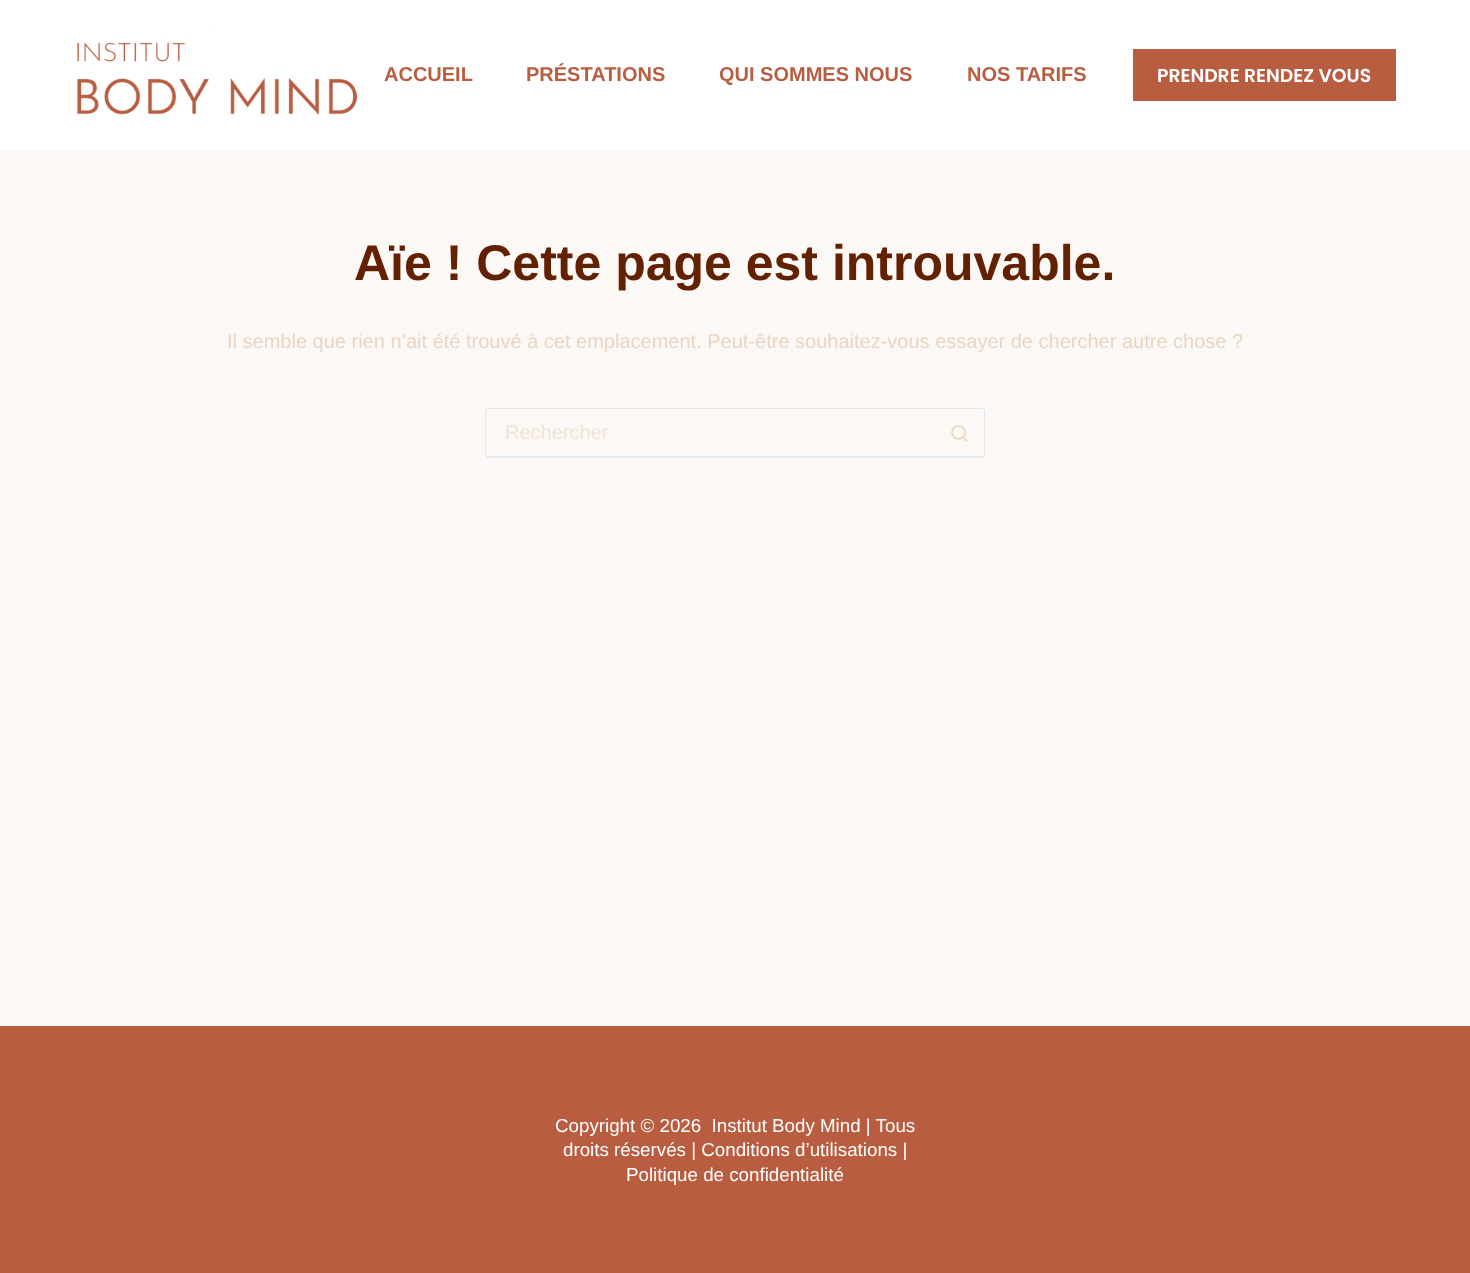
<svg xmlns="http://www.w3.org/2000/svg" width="1470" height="1273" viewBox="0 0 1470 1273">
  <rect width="100%" height="100%" fill="#fcf8f6"/>
  <rect x="0" y="0" width="1470" height="150" fill="#ffffff"/>
  <image x="77" y="30" width="281" height="85" href="img1.png"/>
  <text x="384" y="81" font-family="Liberation Sans" font-size="20" font-weight="bold" fill="#b85d40">ACCUEIL</text>
  <text x="526" y="81" font-family="Liberation Sans" font-size="20" font-weight="bold" fill="#b85d40">PRÉSTATIONS</text>
  <text x="719" y="81" font-family="Liberation Sans" font-size="20" font-weight="bold" fill="#b85d40">QUI SOMMES NOUS</text>
  <text x="967" y="81" font-family="Liberation Sans" font-size="20" font-weight="bold" fill="#b85d40">NOS TARIFS</text>
  <rect x="1133" y="49" width="263" height="52" fill="#b85d40"/>
  <text x="1157" y="82" font-family="Poppins" font-size="18.75" font-weight="600" fill="#ffffff">PRENDRE RENDEZ VOUS</text>
  <text x="354" y="280" font-family="Liberation Sans" font-size="50" font-weight="bold" fill="#622100">Aïe ! Cette page est introuvable.</text>
  <text x="227" y="348" font-family="Liberation Sans" font-size="20" fill="#e8d6c3">Il semble que rien n’ait été trouvé à cet emplacement. Peut-être souhaitez-vous essayer de chercher autre chose ?</text>
  <path d="M489 408H935V458H489C487 458 485 456 485 454V411C485 409 487 408 489 408ZM489 409H935V456H489C487 456 486 455 486 454V411C486 410 487 409 489 409Z" fill="#e1e8ed" fill-rule="evenodd"/>
  <text x="505" y="439" font-family="Liberation Sans" font-size="20" fill="#f0e4d7">Rechercher</text>
  <path d="M935 408H981C983 408 985 409 985 411V454C985 456 983 458 981 458H935ZM935 409H981C983 409 984 410 984 411V454C984 455 983 456 981 456H935Z" fill="#e1e8ed" fill-rule="evenodd"/>
  <image x="951" y="425" width="17" height="16" href="img2.png"/>
  <rect x="0" y="1026" width="1470" height="247" fill="#b85d40"/>
  <text x="555" y="1132" font-family="Liberation Sans" font-size="18.75" fill="#ffffff" xml:space="preserve">Copyright © 2026  Institut Body Mind | Tous</text>
  <text x="563" y="1156" font-family="Liberation Sans" font-size="18.75" fill="#ffffff">droits réservés | Conditions d’utilisations |</text>
  <text x="626" y="1181" font-family="Liberation Sans" font-size="18.75" fill="#ffffff">Politique de confidentialité</text>
</svg>
